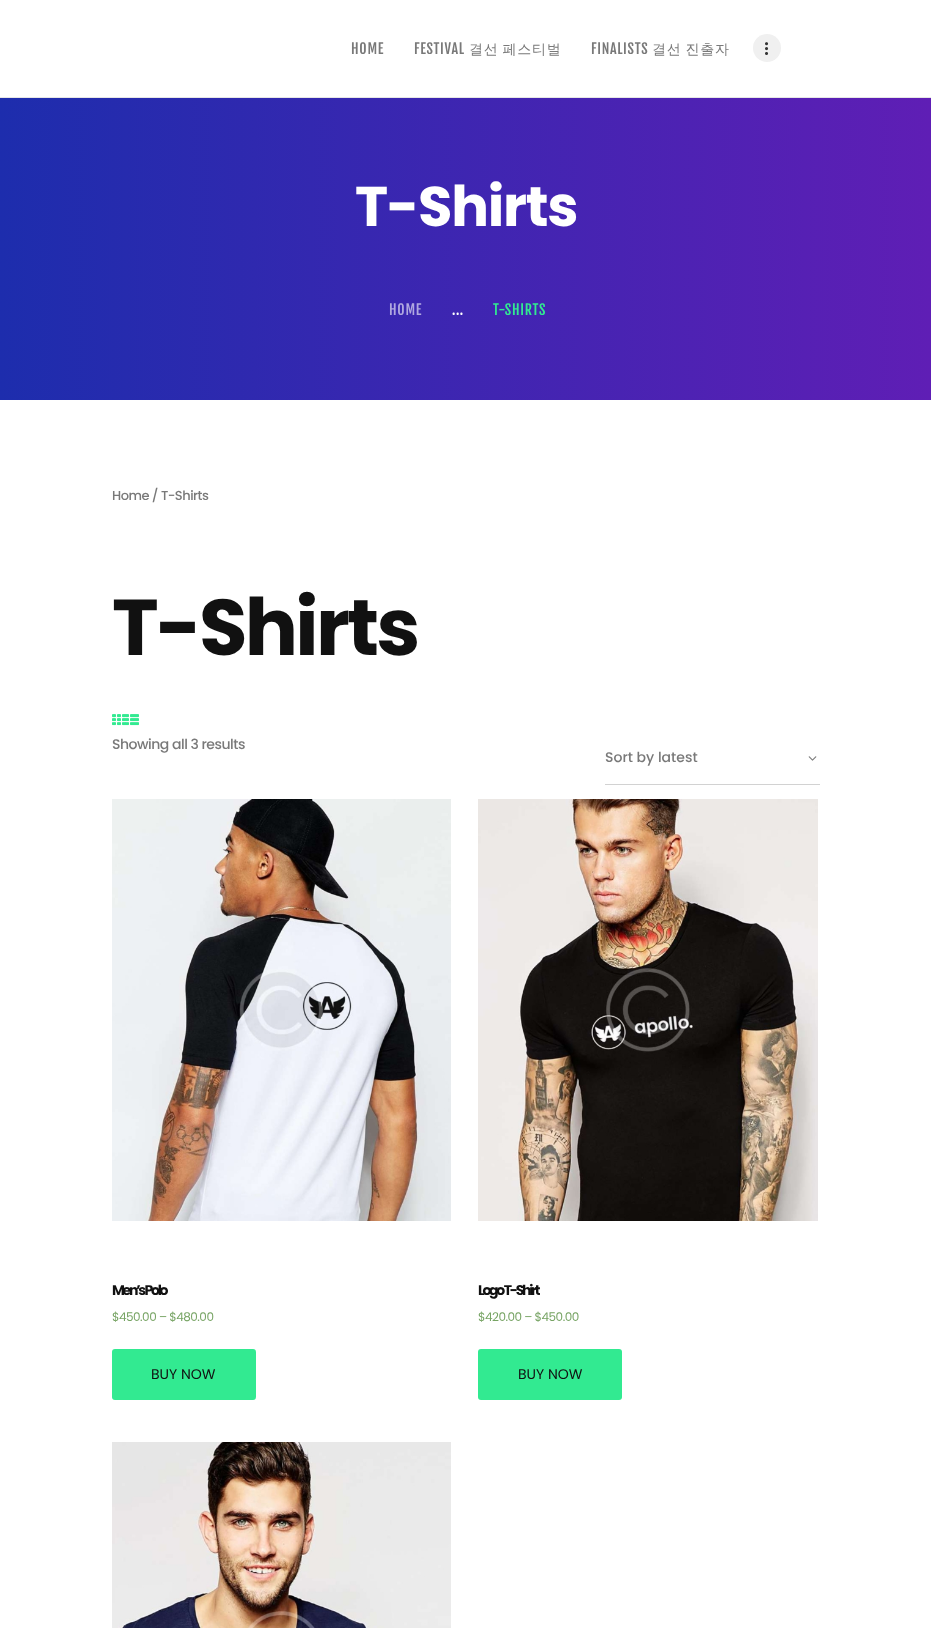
<svg xmlns="http://www.w3.org/2000/svg" width="931" height="1628" viewBox="0 0 931 1628">
  <defs>
    <linearGradient id="g1" gradientUnits="userSpaceOnUse" x1="0" y1="249" x2="931" y2="249"><stop offset="0" stop-color="#1d2dad"/><stop offset="1" stop-color="#5f1eb5"/></linearGradient>
  </defs>
  <rect width="100%" height="100%" fill="#ffffff"/>
  <rect x="0" y="97" width="931" height="1" fill="#e6e6e6"/>
  <text x="351" y="54" font-family="Fjalla One" font-size="14" letter-spacing="0.75" fill="#797979">HOME</text>
  <text x="414" y="54" font-family="Fjalla One" font-size="14" letter-spacing="0.75" fill="#797979">FESTIVAL</text>
  <text x="469" y="54" word-spacing="-1" font-family="WenQuanYi Zen Hei" font-size="14" font-weight="500" letter-spacing="0.75" fill="#797979">결선 페스티벌</text>
  <text x="591" y="54" font-family="Fjalla One" font-size="14" letter-spacing="0.75" fill="#797979">FINALISTS</text>
  <text x="652" y="54" word-spacing="-1" font-family="WenQuanYi Zen Hei" font-size="14" font-weight="500" letter-spacing="0.75" fill="#797979">결선 진출자</text>
  <circle cx="767" cy="48" r="14" fill="#f0f0f0"/>
  <image x="765" y="42" width="4" height="13" href="img1.png"/>
  <rect x="0" y="98" width="931" height="302" fill="url(#g1)"/>
  <text x="355" y="226" font-family="Poppins" font-size="56" font-weight="bold" letter-spacing="-1.25" fill="#ffffff">T-Shirts</text>
  <text x="389" y="315" font-family="Fjalla One" font-size="14" letter-spacing="0.75" fill="#b0a8e0">HOME</text>
  <text x="452" y="315" font-family="Fjalla One" font-size="14" letter-spacing="0.75" fill="#ffffff">...</text>
  <text x="493" y="315" font-family="Fjalla One" font-size="14" letter-spacing="0.75" fill="#32ea91">T-SHIRTS</text>
  <text x="112" y="500" font-family="Poppins" font-size="13" font-weight="500" letter-spacing="-0.5" fill="#797979">Home / T-Shirts</text>
  <text x="112" y="655" font-family="Poppins" font-size="79" font-weight="bold" letter-spacing="-2.75" fill="#111111">T-Shirts</text>
  <image x="112" y="714" width="14" height="12" href="img2.png"/>
  <image x="125" y="714" width="14" height="12" href="img3.png"/>
  <text x="112" y="749" font-family="Poppins" font-size="14" font-weight="500" letter-spacing="-0.5" fill="#797979">Showing all 3 results</text>
  <rect x="605" y="784" width="215" height="1" fill="#d2d2d2"/>
  <text x="605" y="762" font-family="Poppins" font-size="14" font-weight="500" fill="#797979">Sort by latest</text>
  <image x="808" y="756" width="9" height="5" href="img4.png"/>
  <image x="112" y="799" width="339" height="422" href="img5.png"/>
  <text x="112" y="1295" font-family="Poppins" font-size="14" font-weight="bold" letter-spacing="-2.25" fill="#111111">Men’s Polo</text>
  <text x="112" y="1321" font-family="Poppins" font-size="12" letter-spacing="-0.5" fill="#77a464">$450.00 – $480.00</text>
  <rect x="112" y="1349" width="144" height="51" rx="3" fill="#32ea91"/>
  <text x="151" y="1379" font-family="Poppins" font-size="14" fill="#111111">BUY NOW</text>
  <image x="478" y="799" width="340" height="422" href="img6.png"/>
  <text x="478" y="1295" font-family="Poppins" font-size="14" font-weight="bold" letter-spacing="-2.25" fill="#111111">Logo T-Shirt</text>
  <text x="478" y="1321" font-family="Poppins" font-size="12" letter-spacing="-0.5" fill="#77a464">$420.00 – $450.00</text>
  <rect x="478" y="1349" width="144" height="51" rx="3" fill="#32ea91"/>
  <text x="518" y="1379" font-family="Poppins" font-size="14" fill="#111111">BUY NOW</text>
  <image x="112" y="1442" width="339" height="186" href="img7.png"/>
</svg>
